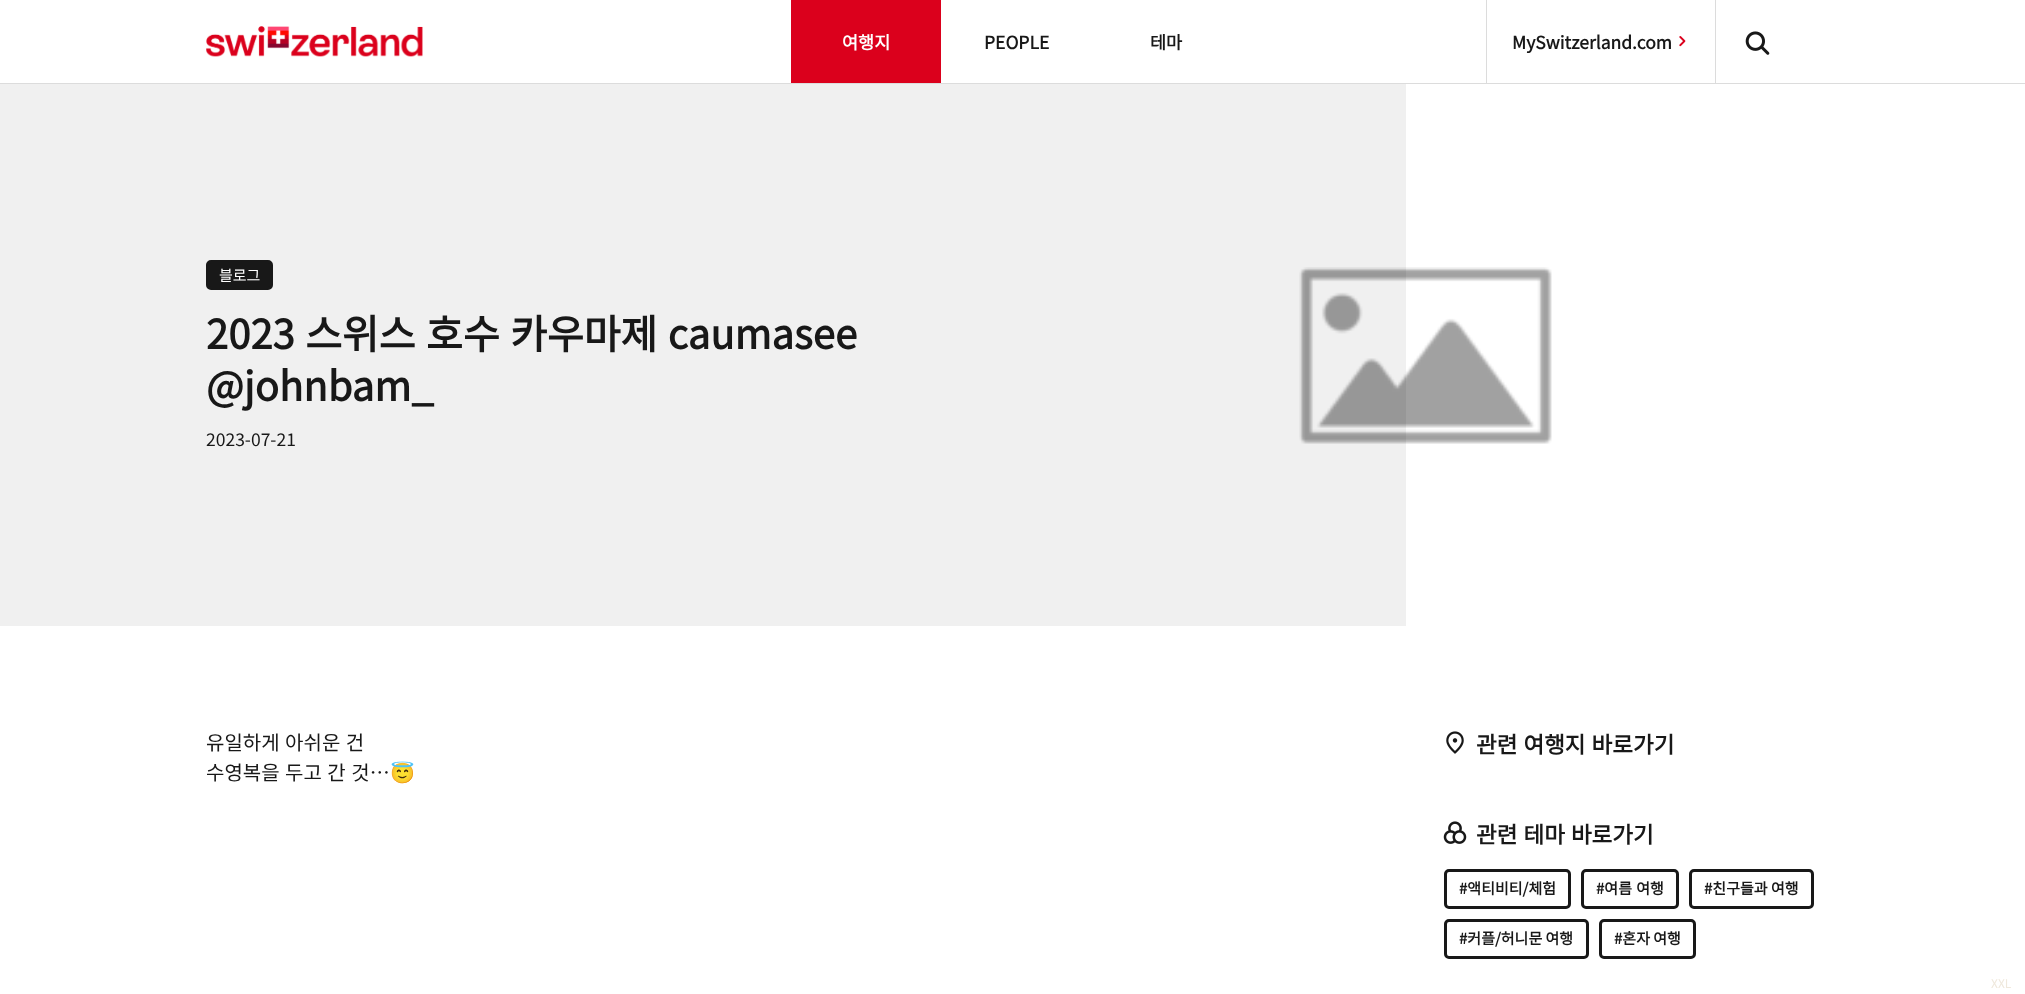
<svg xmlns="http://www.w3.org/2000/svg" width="2025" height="994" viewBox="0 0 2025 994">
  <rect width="100%" height="100%" fill="#ffffff"/>
  <rect x="0" y="83" width="2025" height="1" fill="#dcdcdc"/>
  <image x="206" y="26" width="217" height="31" href="img1.png"/>
  <rect x="791" y="0" width="150" height="83" fill="#db001c"/>
  <text x="842" y="49" font-family="Noto Sans KR" font-size="17.5" font-weight="bold" fill="#ffffff">여행지</text>
  <text x="984" y="49" font-family="Noto Sans KR" font-size="17.5" font-weight="bold" fill="#181818">PEOPLE</text>
  <text x="1150" y="49" font-family="Noto Sans KR" font-size="17.5" font-weight="bold" fill="#181818">테마</text>
  <rect x="1715" y="0" width="1" height="83" fill="#dcdcdc"/>
  <rect x="1486" y="0" width="1" height="83" fill="#dcdcdc"/>
  <text x="1512" y="49" font-family="Noto Sans KR" font-size="17.5" font-weight="bold" fill="#181818">MySwitzerland.com</text>
  <image x="1679" y="36" width="7" height="11" href="img2.png"/>
  <image x="1745" y="31" width="25" height="24" href="img3.png"/>
  <rect x="0" y="84" width="1406" height="542" fill="#f0f0f0"/>
  <rect x="207.5" y="261.5" width="64" height="27" rx="3.5" fill="#181818" stroke="#181818" stroke-width="3"/>
  <text x="219" y="281" font-family="Noto Sans KR" font-size="15" font-weight="100" fill="#ffffff">블로그</text>
  <text x="206" y="349" word-spacing="1.5" font-family="Noto Sans KR" font-size="40" font-weight="bold" fill="#181818">2023 스위스 호수 카우마제 caumasee</text>
  <text x="206" y="401" font-family="Noto Sans KR" font-size="40" font-weight="bold" fill="#181818">@johnbam_</text>
  <text x="206" y="446" font-family="Noto Sans KR" font-size="17.5" font-weight="100" fill="#181818">2023-07-21</text>
  <image x="1299" y="267" width="253" height="177" href="img4.png"/>
  <text x="206" y="750" word-spacing="1" font-family="Noto Sans KR" font-size="20" font-weight="100" fill="#181818">유일하게 아쉬운 건</text>
  <text x="206" y="780" word-spacing="1" font-family="Noto Sans KR" font-size="20" font-weight="100" fill="#181818">수영복을 두고 간 것…</text>
  <text x="390" y="780" font-family="Noto Color Emoji" font-size="20" fill="#181818">😇</text>
  <image x="1446" y="731" width="18" height="23" href="img5.png"/>
  <text x="1476" y="753" word-spacing="1" font-family="Noto Sans KR" font-size="22.5" font-weight="bold" fill="#181818">관련 여행지 바로가기</text>
  <image x="1443" y="821" width="24" height="23" href="img6.png"/>
  <text x="1476" y="843" word-spacing="1" font-family="Noto Sans KR" font-size="22.5" font-weight="bold" fill="#181818">관련 테마 바로가기</text>
  <rect x="1445.5" y="870.5" width="124" height="37" rx="3.5" fill="none" stroke="#181818" stroke-width="3"/>
  <text x="1459" y="894" font-family="Noto Sans KR" font-size="15" font-weight="bold" fill="#181818">#액티비티/체험</text>
  <rect x="1582.5" y="870.5" width="95" height="37" rx="3.5" fill="none" stroke="#181818" stroke-width="3"/>
  <text x="1596" y="894" word-spacing="1" font-family="Noto Sans KR" font-size="15" font-weight="bold" fill="#181818">#여름 여행</text>
  <rect x="1690.5" y="870.5" width="122" height="37" rx="3.5" fill="none" stroke="#181818" stroke-width="3"/>
  <text x="1704" y="894" font-family="Noto Sans KR" font-size="15" font-weight="bold" fill="#181818">#친구들과 여행</text>
  <rect x="1445.5" y="920.5" width="142" height="37" rx="3.5" fill="none" stroke="#181818" stroke-width="3"/>
  <text x="1459" y="944" font-family="Noto Sans KR" font-size="15" font-weight="bold" fill="#181818">#커플/허니문 여행</text>
  <rect x="1600.5" y="920.5" width="94" height="37" rx="3.5" fill="none" stroke="#181818" stroke-width="3"/>
  <text x="1614" y="944" font-family="Noto Sans KR" font-size="15" font-weight="bold" fill="#181818">#혼자 여행</text>
  <text x="1991" y="988" font-family="Noto Sans KR" font-size="12" font-weight="100" fill="#efe8dc">XXL</text>
</svg>
